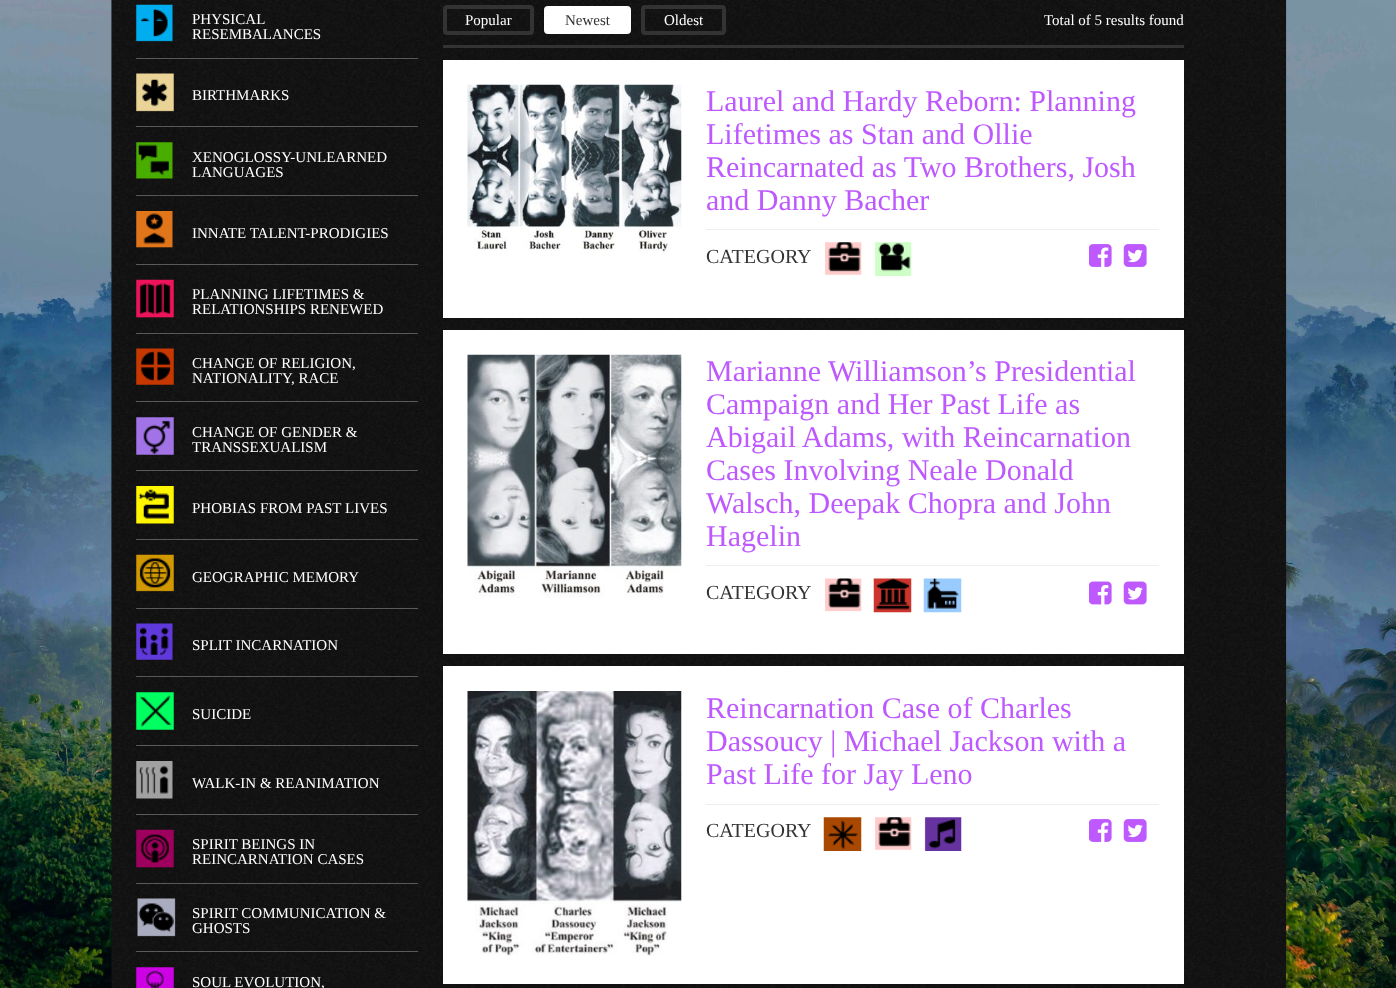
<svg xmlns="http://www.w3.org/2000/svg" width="1396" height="988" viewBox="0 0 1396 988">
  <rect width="100%" height="100%" fill="#ffffff"/>
  <image x="0" y="630" width="1396" height="358" href="img1.png"/>
  <image x="0" y="0" width="1396" height="630" href="img2.png"/>
  <image x="111" y="0" width="1176" height="988" href="img3.png"/>
  <rect x="136" y="58" width="282" height="1" fill="#ffffff" fill-opacity="0.3"/>
  <image x="136" y="4" width="37" height="38" href="img4.png"/>
  <text x="192" y="24" font-family="Liberation Serif" font-size="15" fill="#ffffff">PHYSICAL</text>
  <text x="192" y="39" font-family="Liberation Serif" font-size="15" fill="#ffffff">RESEMBALANCES</text>
  <rect x="136" y="126" width="282" height="1" fill="#ffffff" fill-opacity="0.3"/>
  <image x="136" y="73" width="38" height="39" href="img5.png"/>
  <text x="192" y="100" font-family="Liberation Serif" font-size="15" fill="#ffffff">BIRTHMARKS</text>
  <rect x="136" y="195" width="282" height="1" fill="#ffffff" fill-opacity="0.3"/>
  <image x="136" y="142" width="37" height="37" href="img6.png"/>
  <text x="192" y="162" font-family="Liberation Serif" font-size="15" fill="#ffffff">XENOGLOSSY-UNLEARNED</text>
  <text x="192" y="177" font-family="Liberation Serif" font-size="15" fill="#ffffff">LANGUAGES</text>
  <rect x="136" y="264" width="282" height="1" fill="#ffffff" fill-opacity="0.3"/>
  <image x="136" y="211" width="37" height="37" href="img7.png"/>
  <text x="192" y="238" font-family="Liberation Serif" font-size="15" fill="#ffffff">INNATE TALENT-PRODIGIES</text>
  <rect x="136" y="333" width="282" height="1" fill="#ffffff" fill-opacity="0.3"/>
  <image x="136" y="279" width="38" height="39" href="img8.png"/>
  <text x="192" y="299" font-family="Liberation Serif" font-size="15" fill="#ffffff">PLANNING LIFETIMES &amp;</text>
  <text x="192" y="314" font-family="Liberation Serif" font-size="15" fill="#ffffff">RELATIONSHIPS RENEWED</text>
  <rect x="136" y="401" width="282" height="1" fill="#ffffff" fill-opacity="0.3"/>
  <image x="136" y="348" width="38" height="37" href="img9.png"/>
  <text x="192" y="368" font-family="Liberation Serif" font-size="15" fill="#ffffff">CHANGE OF RELIGION,</text>
  <text x="192" y="383" font-family="Liberation Serif" font-size="15" fill="#ffffff">NATIONALITY, RACE</text>
  <rect x="136" y="470" width="282" height="1" fill="#ffffff" fill-opacity="0.3"/>
  <image x="136" y="417" width="38" height="38" href="img10.png"/>
  <text x="192" y="437" font-family="Liberation Serif" font-size="15" fill="#ffffff">CHANGE OF GENDER &amp;</text>
  <text x="192" y="452" font-family="Liberation Serif" font-size="15" fill="#ffffff">TRANSSEXUALISM</text>
  <rect x="136" y="539" width="282" height="1" fill="#ffffff" fill-opacity="0.3"/>
  <image x="136" y="486" width="38" height="38" href="img11.png"/>
  <text x="192" y="513" font-family="Liberation Serif" font-size="15" fill="#ffffff">PHOBIAS FROM PAST LIVES</text>
  <rect x="136" y="608" width="282" height="1" fill="#ffffff" fill-opacity="0.3"/>
  <image x="136" y="554" width="38" height="38" href="img12.png"/>
  <text x="192" y="582" font-family="Liberation Serif" font-size="15" fill="#ffffff">GEOGRAPHIC MEMORY</text>
  <rect x="136" y="676" width="282" height="1" fill="#ffffff" fill-opacity="0.3"/>
  <image x="136" y="623" width="37" height="37" href="img13.png"/>
  <text x="192" y="650" font-family="Liberation Serif" font-size="15" fill="#ffffff">SPLIT INCARNATION</text>
  <rect x="136" y="745" width="282" height="1" fill="#ffffff" fill-opacity="0.3"/>
  <image x="136" y="692" width="38" height="38" href="img14.png"/>
  <text x="192" y="719" font-family="Liberation Serif" font-size="15" fill="#ffffff">SUICIDE</text>
  <rect x="136" y="814" width="282" height="1" fill="#ffffff" fill-opacity="0.3"/>
  <image x="136" y="761" width="37" height="38" href="img15.png"/>
  <text x="192" y="788" font-family="Liberation Serif" font-size="15" fill="#ffffff">WALK-IN &amp; REANIMATION</text>
  <rect x="136" y="883" width="282" height="1" fill="#ffffff" fill-opacity="0.3"/>
  <image x="136" y="829" width="38" height="39" href="img16.png"/>
  <text x="192" y="849" font-family="Liberation Serif" font-size="15" fill="#ffffff">SPIRIT BEINGS IN</text>
  <text x="192" y="864" font-family="Liberation Serif" font-size="15" fill="#ffffff">REINCARNATION CASES</text>
  <rect x="136" y="951" width="282" height="1" fill="#ffffff" fill-opacity="0.3"/>
  <image x="137" y="898" width="39" height="39" href="img17.png"/>
  <text x="192" y="918" font-family="Liberation Serif" font-size="15" fill="#ffffff">SPIRIT COMMUNICATION &amp;</text>
  <text x="192" y="933" font-family="Liberation Serif" font-size="15" fill="#ffffff">GHOSTS</text>
  <image x="136" y="967" width="38" height="21" href="img18.png"/>
  <text x="192" y="987" font-family="Liberation Serif" font-size="15" fill="#ffffff">SOUL EVOLUTION,</text>
  <rect x="443" y="45" width="741" height="3" fill="#333333"/>
  <rect x="445" y="7" width="87" height="26" rx="2" fill="none" stroke="#333333" stroke-width="4"/>
  <text x="465" y="25" font-family="Liberation Serif" font-size="15" fill="#ffffff">Popular</text>
  <rect x="545.5" y="7.5" width="84" height="25" rx="2.5" fill="#ffffff" stroke="#ffffff" stroke-width="3"/>
  <text x="565" y="25" font-family="Liberation Serif" font-size="15" fill="#333333">Newest</text>
  <rect x="643" y="7" width="81" height="26" rx="2" fill="none" stroke="#333333" stroke-width="4"/>
  <text x="664" y="25" font-family="Liberation Serif" font-size="15" fill="#ffffff">Oldest</text>
  <text x="1044" y="25" font-family="Liberation Serif" font-size="15" fill="#ffffff">Total of 5 results found</text>
  <rect x="443" y="60" width="741" height="258" fill="#ffffff"/>
  <image x="467" y="84" width="215" height="170" href="img19.png"/>
  <text x="706" y="111" font-family="Liberation Serif" font-size="30" fill="#be59ff">Laurel and Hardy Reborn: Planning</text>
  <text x="706" y="144" font-family="Liberation Serif" font-size="30" fill="#be59ff">Lifetimes as Stan and Ollie</text>
  <text x="706" y="177" font-family="Liberation Serif" font-size="30" fill="#be59ff">Reincarnated as Two Brothers, Josh</text>
  <text x="706" y="210" font-family="Liberation Serif" font-size="30" fill="#be59ff">and Danny Bacher</text>
  <rect x="706" y="229" width="453" height="1" fill="#eeeeee"/>
  <text x="706" y="263" font-family="Liberation Serif" font-size="20" fill="#333333">CATEGORY</text>
  <image x="825" y="242" width="37" height="33" href="img20.png"/>
  <image x="875" y="242" width="37" height="34" href="img21.png"/>
  <image x="1089" y="244" width="23" height="23" href="img22.png"/>
  <image x="1123" y="244" width="24" height="23" href="img23.png"/>
  <rect x="443" y="330" width="741" height="324" fill="#ffffff"/>
  <image x="467" y="354" width="215" height="244" href="img24.png"/>
  <text x="706" y="381" font-family="Liberation Serif" font-size="30" fill="#be59ff">Marianne Williamson’s Presidential</text>
  <text x="706" y="414" font-family="Liberation Serif" font-size="30" fill="#be59ff">Campaign and Her Past Life as</text>
  <text x="706" y="447" font-family="Liberation Serif" font-size="30" fill="#be59ff">Abigail Adams, with Reincarnation</text>
  <text x="706" y="480" font-family="Liberation Serif" font-size="30" fill="#be59ff">Cases Involving Neale Donald</text>
  <text x="706" y="513" font-family="Liberation Serif" font-size="30" fill="#be59ff">Walsch, Deepak Chopra and John</text>
  <text x="706" y="546" font-family="Liberation Serif" font-size="30" fill="#be59ff">Hagelin</text>
  <rect x="706" y="565" width="453" height="1" fill="#eeeeee"/>
  <text x="706" y="599" font-family="Liberation Serif" font-size="20" fill="#333333">CATEGORY</text>
  <image x="825" y="578" width="37" height="34" href="img25.png"/>
  <image x="873" y="578" width="39" height="35" href="img26.png"/>
  <image x="923" y="578" width="39" height="35" href="img27.png"/>
  <image x="1089" y="581" width="23" height="24" href="img28.png"/>
  <image x="1123" y="581" width="24" height="24" href="img29.png"/>
  <rect x="443" y="666" width="741" height="318" fill="#ffffff"/>
  <image x="467" y="691" width="215" height="265" href="img30.png"/>
  <text x="706" y="718" font-family="Liberation Serif" font-size="30" fill="#be59ff">Reincarnation Case of Charles</text>
  <text x="706" y="751" font-family="Liberation Serif" font-size="30" fill="#be59ff">Dassoucy | Michael Jackson with a</text>
  <text x="706" y="784" font-family="Liberation Serif" font-size="30" fill="#be59ff">Past Life for Jay Leno</text>
  <rect x="706" y="804" width="453" height="1" fill="#eeeeee"/>
  <text x="706" y="837" font-family="Liberation Serif" font-size="20" fill="#333333">CATEGORY</text>
  <image x="823" y="817" width="39" height="34" href="img31.png"/>
  <image x="875" y="817" width="37" height="33" href="img32.png"/>
  <image x="924" y="817" width="38" height="34" href="img33.png"/>
  <image x="1089" y="819" width="23" height="23" href="img22.png"/>
  <image x="1123" y="819" width="24" height="23" href="img23.png"/>
</svg>
